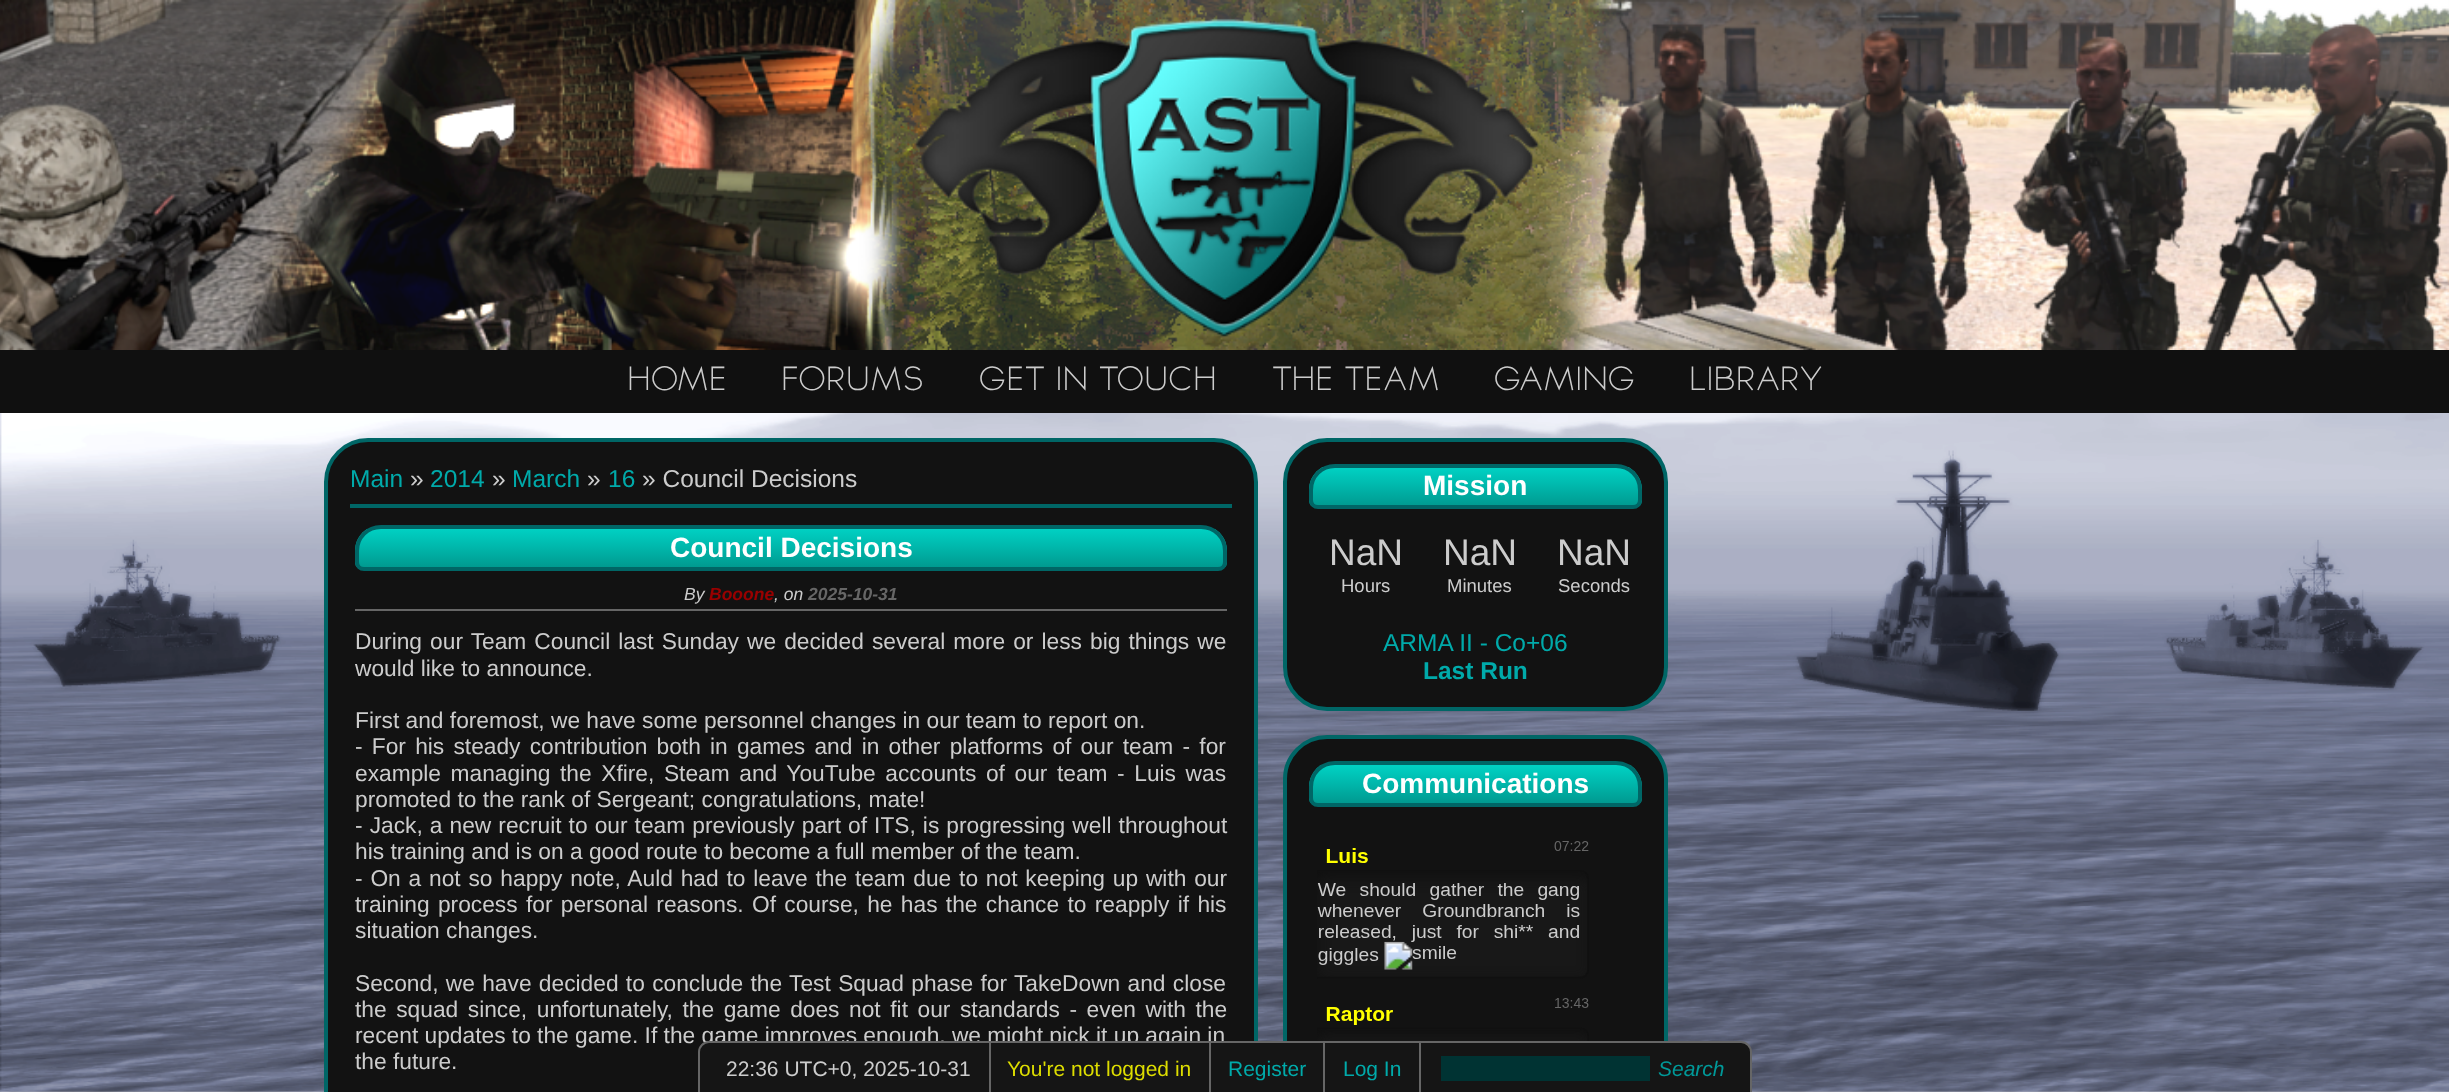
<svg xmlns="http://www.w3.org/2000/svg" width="2449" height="1092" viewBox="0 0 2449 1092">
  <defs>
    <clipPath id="clip1"><path d="M381 525H1201C1215.5 525 1227 536.5 1227 551V562C1227 567 1223 571 1218 571H364C359 571 355 567 355 562V551C355 536.5 366.5 525 381 525Z"/></clipPath>
    <linearGradient id="g1" gradientUnits="userSpaceOnUse" x1="791" y1="528" x2="791" y2="567"><stop offset="0" stop-color="#00d2c4"/><stop offset="0.44" stop-color="#00baae"/><stop offset="1" stop-color="#009a90"/></linearGradient>
    <clipPath id="clip2"><path d="M1335 464H1616C1630.5 464 1642 475.5 1642 490V500C1642 505 1638 509 1633 509H1318C1313 509 1309 505 1309 500V490C1309 475.5 1320.5 464 1335 464Z"/></clipPath>
    <linearGradient id="g2" gradientUnits="userSpaceOnUse" x1="1475" y1="467" x2="1475" y2="506"><stop offset="0" stop-color="#00d2c4"/><stop offset="0.44" stop-color="#00baae"/><stop offset="1" stop-color="#009a90"/></linearGradient>
    <clipPath id="clip3"><path d="M1335 761H1616C1630.5 761 1642 772.5 1642 787V798C1642 803 1638 807 1633 807H1318C1313 807 1309 803 1309 798V787C1309 772.5 1320.5 761 1335 761Z"/></clipPath>
    <linearGradient id="g3" gradientUnits="userSpaceOnUse" x1="1475" y1="765" x2="1475" y2="803"><stop offset="0" stop-color="#00d2c4"/><stop offset="0.44" stop-color="#00baae"/><stop offset="1" stop-color="#009a90"/></linearGradient>
  </defs>
  <rect width="100%" height="100%" fill="#ffffff"/>
  <image x="0" y="413" width="2449" height="679" href="img1.png"/>
  <image x="0" y="0" width="2449" height="350" href="img2.png"/>
  <rect x="0" y="350" width="2449" height="63" fill="#101010"/>
  <text x="627" y="390" font-family="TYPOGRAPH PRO" font-size="30.25" font-weight="300" fill="#cccccc">HOME</text>
  <text x="781" y="390" font-family="TYPOGRAPH PRO" font-size="30.25" font-weight="300" fill="#cccccc">FORUMS</text>
  <text x="979" y="390" font-family="TYPOGRAPH PRO" font-size="30.25" font-weight="300" fill="#cccccc">GET IN TOUCH</text>
  <text x="1272" y="390" font-family="TYPOGRAPH PRO" font-size="30.25" font-weight="300" fill="#cccccc">THE TEAM</text>
  <text x="1494" y="390" font-family="TYPOGRAPH PRO" font-size="30.25" font-weight="300" fill="#cccccc">GAMING</text>
  <text x="1689" y="390" font-family="TYPOGRAPH PRO" font-size="30.25" font-weight="300" fill="#cccccc">LIBRARY</text>
  <rect x="326" y="440" width="930" height="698" rx="42" fill="#121212" stroke="#006666" stroke-width="4"/>
  <text x="350" y="487" font-family="Liberation Sans" font-size="24.5" fill="#00aaaa">Main</text>
  <text x="410" y="487" font-family="Liberation Sans" font-size="24.5" fill="#cccccc">»</text>
  <text x="430" y="487" font-family="Liberation Sans" font-size="24.5" fill="#00aaaa">2014</text>
  <text x="492" y="487" font-family="Liberation Sans" font-size="24.5" fill="#cccccc">»</text>
  <text x="512" y="487" font-family="Liberation Sans" font-size="24.5" fill="#00aaaa">March</text>
  <text x="587" y="487" font-family="Liberation Sans" font-size="24.5" fill="#cccccc">»</text>
  <text x="608" y="487" font-family="Liberation Sans" font-size="24.5" fill="#00aaaa">16</text>
  <text x="642" y="487" font-family="Liberation Sans" font-size="24.5" fill="#cccccc">» Council Decisions</text>
  <rect x="350" y="504" width="882" height="4" fill="#006666"/>
  <g clip-path="url(#clip1)">
    <rect x="355" y="529" width="872" height="38" fill="url(#g1)"/>
  </g>
  <path d="M381 527H1201C1214.5 527 1225 537.5 1225 551V562C1225 566 1222 569 1218 569H364C360 569 357 566 357 562V551C357 537.5 367.5 527 381 527Z" fill="none" stroke="#006666" stroke-width="4"/>
  <text x="670" y="557" font-family="Liberation Sans" font-size="28" font-weight="bold" fill="#ffffff">Council Decisions</text>
  <rect x="355" y="609" width="872" height="2" fill="#666666"/>
  <text x="684" y="600" font-family="Liberation Sans" font-size="17.5" font-style="italic" fill="#cccccc">By</text>
  <text x="709" y="600" font-family="Liberation Sans" font-size="17.5" font-weight="bold" font-style="italic" fill="#990000">Booone</text>
  <text x="774" y="600" font-family="Liberation Sans" font-size="17.5" font-style="italic" fill="#cccccc">, on</text>
  <text x="808" y="600" font-family="Liberation Sans" font-size="17.5" font-weight="bold" font-style="italic" fill="#666666">2025-10-31</text>
  <text x="355" y="649" word-spacing="1.75" font-family="Liberation Sans" font-size="22.75" fill="#cccccc">During our Team Council last Sunday we decided several more or less big things we</text>
  <text x="355" y="676" font-family="Liberation Sans" font-size="22.75" fill="#cccccc">would like to announce.</text>
  <text x="355" y="728" font-family="Liberation Sans" font-size="22.75" fill="#cccccc">First and foremost, we have some personnel changes in our team to report on.</text>
  <text x="355" y="754" word-spacing="2.9" font-family="Liberation Sans" font-size="22.75" fill="#cccccc">- For his steady contribution both in games and in other platforms of our team - for</text>
  <text x="355" y="781" word-spacing="3.25" font-family="Liberation Sans" font-size="22.75" fill="#cccccc">example managing the Xfire, Steam and YouTube accounts of our team - Luis was</text>
  <text x="355" y="807" font-family="Liberation Sans" font-size="22.75" fill="#cccccc">promoted to the rank of Sergeant; congratulations, mate!</text>
  <text x="355" y="833" word-spacing="0.75" font-family="Liberation Sans" font-size="22.75" fill="#cccccc">- Jack, a new recruit to our team previously part of ITS, is progressing well throughout</text>
  <text x="355" y="859" font-family="Liberation Sans" font-size="22.75" fill="#cccccc">his training and is on a good route to become a full member of the team.</text>
  <text x="355" y="886" word-spacing="1.5" font-family="Liberation Sans" font-size="22.75" fill="#cccccc">- On a not so happy note, Auld had to leave the team due to not keeping up with our</text>
  <text x="355" y="912" word-spacing="2" font-family="Liberation Sans" font-size="22.75" fill="#cccccc">training process for personal reasons. Of course, he has the chance to reapply if his</text>
  <text x="355" y="938" font-family="Liberation Sans" font-size="22.75" fill="#cccccc">situation changes.</text>
  <text x="355" y="991" word-spacing="1" font-family="Liberation Sans" font-size="22.75" fill="#cccccc">Second, we have decided to conclude the Test Squad phase for TakeDown and close</text>
  <text x="355" y="1017" word-spacing="3.25" font-family="Liberation Sans" font-size="22.75" fill="#cccccc">the squad since, unfortunately, the game does not fit our standards - even with the</text>
  <text x="355" y="1043" font-family="Liberation Sans" font-size="22.75" fill="#cccccc">recent updates to the game. If the game improves enough, we might pick it up again in</text>
  <text x="355" y="1069" font-family="Liberation Sans" font-size="22.75" fill="#cccccc">the future.</text>
  <rect x="1285" y="440" width="381" height="269" rx="42" fill="#121212" stroke="#006666" stroke-width="4"/>
  <g clip-path="url(#clip2)">
    <rect x="1309" y="467" width="333" height="39" fill="url(#g2)"/>
  </g>
  <path d="M1335 466H1616C1629.5 466 1640 476.5 1640 490V500C1640 504 1637 507 1633 507H1318C1314 507 1311 504 1311 500V490C1311 476.5 1321.5 466 1335 466Z" fill="none" stroke="#006666" stroke-width="4"/>
  <text x="1423" y="495" font-family="Liberation Sans" font-size="28" font-weight="bold" fill="#ffffff">Mission</text>
  <text x="1329" y="565" font-family="Liberation Sans" font-size="37" fill="#cccccc">NaN</text>
  <text x="1341" y="592" font-family="Liberation Sans" font-size="18.5" fill="#cccccc">Hours</text>
  <text x="1443" y="565" font-family="Liberation Sans" font-size="37" fill="#cccccc">NaN</text>
  <text x="1447" y="592" font-family="Liberation Sans" font-size="18.5" fill="#cccccc">Minutes</text>
  <text x="1557" y="565" font-family="Liberation Sans" font-size="37" fill="#cccccc">NaN</text>
  <text x="1558" y="592" font-family="Liberation Sans" font-size="18.5" fill="#cccccc">Seconds</text>
  <text x="1383" y="651" font-family="Liberation Sans" font-size="24.5" fill="#00aaaa">ARMA II - Co+06</text>
  <text x="1423" y="679" font-family="Liberation Sans" font-size="24.5" font-weight="bold" fill="#00aaaa">Last Run</text>
  <rect x="1285" y="737" width="381" height="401" rx="42" fill="#121212" stroke="#006666" stroke-width="4"/>
  <g clip-path="url(#clip3)">
    <rect x="1309" y="765" width="333" height="38" fill="url(#g3)"/>
  </g>
  <path d="M1335 763H1616C1629.5 763 1640 773.5 1640 787V798C1640 802 1637 805 1633 805H1318C1314 805 1311 802 1311 798V787C1311 773.5 1321.5 763 1335 763Z" fill="none" stroke="#006666" stroke-width="4"/>
  <text x="1362" y="793" font-family="Liberation Sans" font-size="28" font-weight="bold" fill="#ffffff">Communications</text>
  <image x="1317" y="841" width="272" height="200" href="img3.png"/>
  <path d="M709 1042H1741C1746.5 1042 1751 1046.5 1751 1052V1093H699V1052C699 1046.5 703.5 1042 709 1042Z" fill="#151515" stroke="#666666" stroke-width="2"/>
  <rect x="989" y="1043" width="2" height="49" fill="#666666"/>
  <text x="726" y="1076" font-family="Liberation Sans" font-size="21" fill="#cccccc">22:36 UTC+0, 2025-10-31</text>
  <rect x="1209" y="1043" width="2" height="49" fill="#666666"/>
  <text x="1007" y="1076" font-family="Liberation Sans" font-size="21" fill="#dddd00">You're not logged in</text>
  <rect x="1323" y="1043" width="2" height="49" fill="#666666"/>
  <text x="1228" y="1076" font-family="Liberation Sans" font-size="21" fill="#00aaaa">Register</text>
  <rect x="1419" y="1043" width="2" height="49" fill="#666666"/>
  <text x="1343" y="1076" font-family="Liberation Sans" font-size="21" fill="#00aaaa">Log In</text>
  <rect x="1441" y="1056" width="209" height="25" fill="#003333"/>
  <text x="1658" y="1076" font-family="Liberation Sans" font-size="21" font-style="italic" fill="#009999">Search</text>
</svg>
